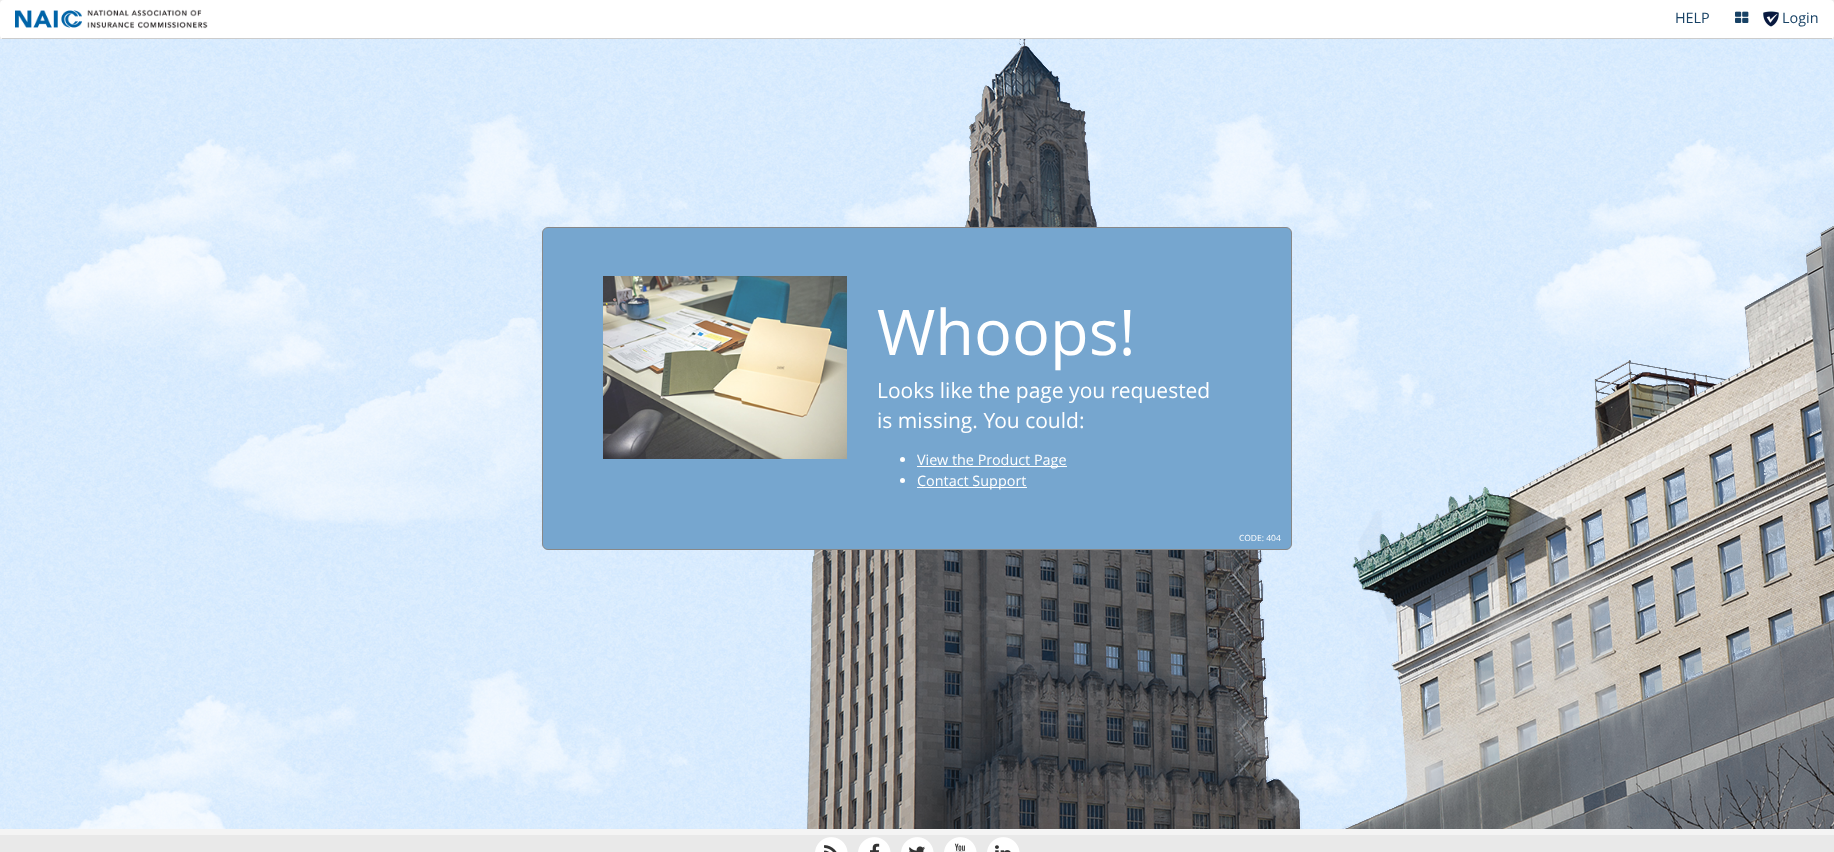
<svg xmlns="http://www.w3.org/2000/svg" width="1834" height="852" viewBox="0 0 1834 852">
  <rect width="100%" height="100%" fill="#ecebeb"/>
  <rect x="0" y="0" width="1834" height="39" rx="4" fill="#ffffff"/>
  <rect x="2" y="38" width="1830" height="1" fill="#cccccc"/>
  <image x="15" y="10" width="67" height="18" href="img1.png"/>
  <image x="87" y="9" width="121" height="20" href="img2.png"/>
  <text x="1675" y="23" font-family="Open Sans" font-size="14.4" fill="#184265">HELP</text>
  <image x="1735" y="11" width="14" height="12" href="img3.png"/>
  <image x="1763" y="11" width="16" height="16" href="img4.png"/>
  <text x="1782" y="23" font-family="Open Sans" font-size="14.4" fill="#184265">Login</text>
  <image x="0" y="39" width="1834" height="790" href="img5.png"/>
  <image x="772" y="39" width="1062" height="790" href="img6.png"/>
  <rect x="542.5" y="227.5" width="749" height="322" rx="5.5" fill="#76a6cf" stroke="#888888"/>
  <image x="603" y="276" width="244" height="183" href="img7.png"/>
  <text x="877" y="355" font-family="Open Sans" font-size="63" fill="#ffffff">Whoops!</text>
  <text x="877" y="398" font-family="Open Sans" font-size="21" fill="#ffffff">Looks like the page you requested</text>
  <text x="877" y="428" font-family="Open Sans" font-size="21" fill="#ffffff">is missing. You could:</text>
  <circle cx="902.5" cy="459.5" r="2.5" fill="#ffffff"/>
  <rect x="917" y="466" width="150" height="1" fill="#ffffff"/>
  <text x="917" y="465" font-family="Open Sans" font-size="14.4" fill="#ffffff">View the Product Page</text>
  <circle cx="902.5" cy="480.5" r="2.5" fill="#ffffff"/>
  <rect x="917" y="487" width="110" height="1" fill="#ffffff"/>
  <text x="917" y="486" font-family="Open Sans" font-size="14.4" fill="#ffffff">Contact Support</text>
  <text x="1239" y="541" font-family="Open Sans" font-size="8.5" fill="#ffffff">CODE: 404</text>
  <rect x="0" y="829" width="1834" height="6" fill="#f4f4f4"/>
  <rect x="0" y="835" width="1834" height="17" fill="#e9e9e9"/>
  <image x="815" y="837" width="33" height="15" href="img8.png"/>
  <image x="824" y="845" width="13" height="7" href="img9.png"/>
  <image x="858" y="837" width="33" height="15" href="img8.png"/>
  <image x="870" y="843" width="10" height="9" href="img10.png"/>
  <image x="901" y="837" width="33" height="15" href="img8.png"/>
  <image x="909" y="846" width="16" height="6" href="img11.png"/>
  <image x="944" y="837" width="33" height="15" href="img8.png"/>
  <image x="954" y="843" width="12" height="9" href="img12.png"/>
  <image x="987" y="837" width="33" height="15" href="img8.png"/>
  <image x="995" y="845" width="16" height="7" href="img13.png"/>
</svg>
